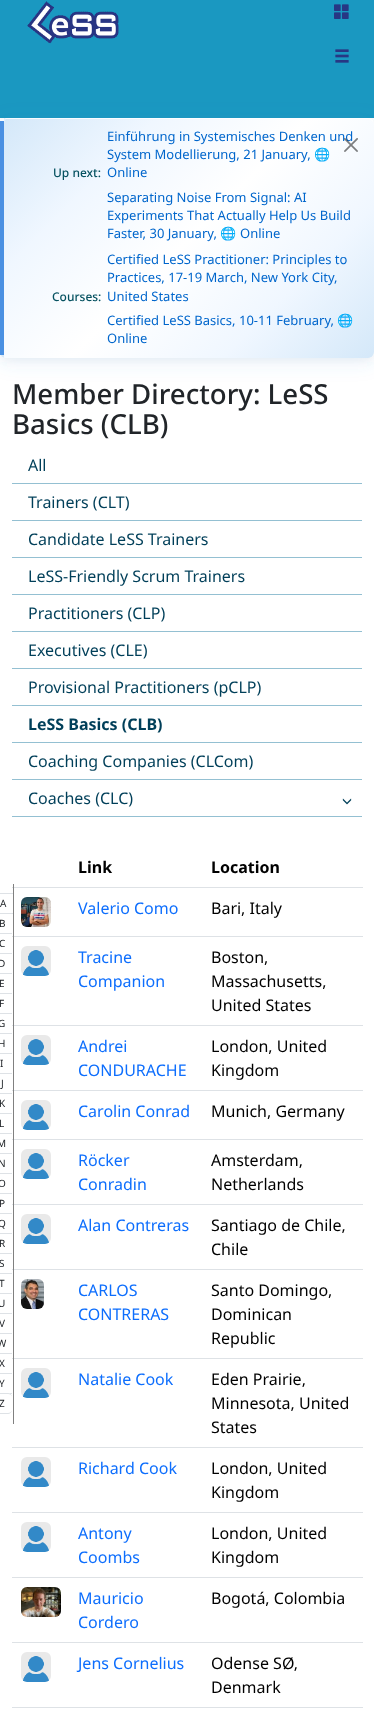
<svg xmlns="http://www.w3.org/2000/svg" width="374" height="1709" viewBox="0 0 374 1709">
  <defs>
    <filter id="blur1" x="-50%" y="-200%" width="200%" height="500%"><feGaussianBlur stdDeviation="4"/></filter>
    <filter id="blur2" x="-50%" y="-200%" width="200%" height="500%"><feGaussianBlur stdDeviation="10"/></filter>
    <clipPath id="clip1"><rect x="0" y="118" width="374" height="240" rx="6"/></clipPath>
    <linearGradient id="g1" gradientUnits="userSpaceOnUse" x1="-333" y1="86" x2="-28" y2="391"><stop offset="0" stop-color="#d4e8f9"/><stop offset="0.25" stop-color="#f0f7ff"/><stop offset="0.5" stop-color="#ffffff"/><stop offset="0.75" stop-color="#f0f7ff"/><stop offset="1" stop-color="#d4e8f9"/></linearGradient>
    <linearGradient id="g2" gradientUnits="userSpaceOnUse" x1="37" y1="86" x2="342" y2="391"><stop offset="0" stop-color="#d4e8f9"/><stop offset="0.25" stop-color="#f0f7ff"/><stop offset="0.5" stop-color="#ffffff"/><stop offset="0.75" stop-color="#f0f7ff"/><stop offset="1" stop-color="#d4e8f9"/></linearGradient>
  </defs>
  <rect width="100%" height="100%" fill="#ffffff"/>
  <rect x="0" y="0" width="374" height="118" fill="#1a98c1"/>
  <image x="27" y="1" width="92" height="43" href="img1.png"/>
  <image x="334" y="4" width="15" height="15" href="img2.png"/>
  <image x="335" y="49" width="14" height="14" href="img3.png"/>
  <rect x="0" y="120" width="374" height="240" rx="6" fill="#000000" fill-opacity="0.04" filter="url(#blur1)"/>
  <rect x="0" y="122" width="374" height="240" rx="6" fill="#4a90e2" fill-opacity="0.12" filter="url(#blur2)"/>
  <g clip-path="url(#clip1)">
    <rect x="0" y="118" width="4" height="240" fill="url(#g1)"/>
    <path d="M4 118H368C371.5 118 374 120.5 374 124V352C374 355.5 371.5 358 368 358H4Z" fill="url(#g2)"/>
  </g>
  <path d="M6 119H368C371 119 374 122 374 125C374 121 372 118 368 118H6C4 118 4 124 4 125C4 122 5 119 6 119Z" fill="#ffffff" fill-opacity="0.8"/>
  <rect x="0" y="121" width="4" height="234" fill="#4a90e2"/>
  <text x="53" y="177" font-family="Noto Sans" font-size="12" font-weight="500" fill="#055160">Up next:</text>
  <text x="107" y="141" font-family="Noto Sans" font-size="13" fill="#0066cc">Einführung in Systemisches Denken und</text>
  <text x="107" y="159" font-family="Noto Sans" font-size="13" fill="#0066cc">System Modellierung, 21 January,</text>
  <text x="314" y="159" font-family="Noto Color Emoji" font-size="13" fill="#0066cc">🌐</text>
  <text x="107" y="177" font-family="Noto Sans" font-size="13" fill="#0066cc">Online</text>
  <text x="107" y="202" font-family="Noto Sans" font-size="13" fill="#0066cc">Separating Noise From Signal: AI</text>
  <text x="107" y="220" font-family="Noto Sans" font-size="13" fill="#0066cc">Experiments That Actually Help Us Build</text>
  <text x="107" y="238" font-family="Noto Sans" font-size="13" fill="#0066cc">Faster, 30 January,</text>
  <text x="220" y="238" font-family="Noto Color Emoji" font-size="13" fill="#0066cc">🌐</text>
  <text x="240" y="238" font-family="Noto Sans" font-size="13" fill="#0066cc">Online</text>
  <image x="344" y="138" width="14" height="14" href="img4.png"/>
  <text x="52" y="301" font-family="Noto Sans" font-size="12" font-weight="500" fill="#055160">Courses:</text>
  <text x="107" y="264" font-family="Noto Sans" font-size="13" fill="#0066cc">Certified LeSS Practitioner: Principles to</text>
  <text x="107" y="282" font-family="Noto Sans" font-size="13" fill="#0066cc">Practices, 17-19 March, New York City,</text>
  <text x="107" y="301" font-family="Noto Sans" font-size="13" fill="#0066cc">United States</text>
  <text x="107" y="325" font-family="Noto Sans" font-size="13" fill="#0066cc">Certified LeSS Basics, 10-11 February,</text>
  <text x="337" y="325" font-family="Noto Color Emoji" font-size="13" fill="#0066cc">🌐</text>
  <text x="107" y="343" font-family="Noto Sans" font-size="13" fill="#0066cc">Online</text>
  <text x="12" y="404" font-family="Noto Sans" font-size="27.6" font-weight="500" fill="#212529">Member Directory: LeSS</text>
  <text x="12" y="434" font-family="Noto Sans" font-size="27.6" font-weight="500" fill="#212529">Basics (CLB)</text>
  <rect x="12" y="483" width="350" height="1" fill="#94c0d2"/>
  <text x="28" y="471" font-family="Noto Sans" font-size="16" fill="#003f59">All</text>
  <rect x="12" y="520" width="350" height="1" fill="#94c0d2"/>
  <text x="28" y="508" font-family="Noto Sans" font-size="16" fill="#003f59">Trainers (CLT)</text>
  <rect x="12" y="557" width="350" height="1" fill="#94c0d2"/>
  <text x="28" y="545" font-family="Noto Sans" font-size="16" fill="#003f59">Candidate LeSS Trainers</text>
  <rect x="12" y="594" width="350" height="1" fill="#94c0d2"/>
  <text x="28" y="582" font-family="Noto Sans" font-size="16" fill="#003f59">LeSS-Friendly Scrum Trainers</text>
  <rect x="12" y="631" width="350" height="1" fill="#94c0d2"/>
  <text x="28" y="619" font-family="Noto Sans" font-size="16" fill="#003f59">Practitioners (CLP)</text>
  <rect x="12" y="668" width="350" height="1" fill="#94c0d2"/>
  <text x="28" y="656" font-family="Noto Sans" font-size="16" fill="#003f59">Executives (CLE)</text>
  <rect x="12" y="705" width="350" height="1" fill="#94c0d2"/>
  <text x="28" y="693" font-family="Noto Sans" font-size="16" fill="#003f59">Provisional Practitioners (pCLP)</text>
  <rect x="12" y="742" width="350" height="1" fill="#94c0d2"/>
  <text x="28" y="730" font-family="Noto Sans" font-size="16" font-weight="bold" fill="#003f59">LeSS Basics (CLB)</text>
  <rect x="12" y="779" width="350" height="1" fill="#94c0d2"/>
  <text x="28" y="767" font-family="Noto Sans" font-size="16" fill="#003f59">Coaching Companies (CLCom)</text>
  <rect x="12" y="816" width="350" height="1" fill="#94c0d2"/>
  <text x="28" y="804" font-family="Noto Sans" font-size="16" fill="#003f59">Coaches (CLC)</text>
  <image x="342" y="798" width="10" height="7" href="img5.png"/>
  <rect x="12" y="887" width="351" height="1" fill="#dee2e6"/>
  <rect x="12" y="936" width="351" height="1" fill="#dee2e6"/>
  <rect x="12" y="1025" width="351" height="1" fill="#dee2e6"/>
  <rect x="12" y="1090" width="351" height="1" fill="#dee2e6"/>
  <rect x="12" y="1139" width="351" height="1" fill="#dee2e6"/>
  <rect x="12" y="1204" width="351" height="1" fill="#dee2e6"/>
  <rect x="12" y="1269" width="351" height="1" fill="#dee2e6"/>
  <rect x="12" y="1358" width="351" height="1" fill="#dee2e6"/>
  <rect x="13" y="884" width="1" height="540" fill="#808080"/>
  <path d="M-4 893H13V914H-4C-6 914-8 912-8 910V897C-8 895-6 893-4 893ZM-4 894H13V913H-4C-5.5 913-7 911.5-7 910V897C-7 895.5-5.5 894-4 894Z" fill="#dee2e6" fill-rule="evenodd"/>
  <text x="0" y="907" font-family="Noto Sans" font-size="10" fill="#212529">A</text>
  <path d="M-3 913H12V934H-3C-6.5 934-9 931.5-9 928V919C-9 915.5-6.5 913-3 913ZM-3 914H12V933H-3C-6 933-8 931-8 928V919C-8 916-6 914-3 914Z" fill="#dee2e6" fill-rule="evenodd"/>
  <text x="-1" y="927" font-family="Noto Sans" font-size="10" fill="#212529">B</text>
  <path d="M-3 933H12V954H-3C-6.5 954-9 951.5-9 948V939C-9 935.5-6.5 933-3 933ZM-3 934H12V953H-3C-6 953-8 951-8 948V939C-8 936-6 934-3 934Z" fill="#dee2e6" fill-rule="evenodd"/>
  <text x="-1" y="947" font-family="Noto Sans" font-size="10" fill="#212529">C</text>
  <path d="M-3 953H12V974H-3C-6.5 974-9 971.5-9 968V959C-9 955.5-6.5 953-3 953ZM-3 954H12V973H-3C-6 973-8 971-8 968V959C-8 956-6 954-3 954Z" fill="#dee2e6" fill-rule="evenodd"/>
  <text x="-2" y="967" font-family="Noto Sans" font-size="10" fill="#212529">D</text>
  <path d="M-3 973H12V994H-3C-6.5 994-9 991.5-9 988V979C-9 975.5-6.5 973-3 973ZM-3 974H12V993H-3C-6 993-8 991-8 988V979C-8 976-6 974-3 974Z" fill="#dee2e6" fill-rule="evenodd"/>
  <text x="-1" y="987" font-family="Noto Sans" font-size="10" fill="#212529">E</text>
  <path d="M-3 993H12V1014H-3C-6.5 1014-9 1011.5-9 1008V999C-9 995.5-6.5 993-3 993ZM-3 994H12V1013H-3C-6 1013-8 1011-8 1008V999C-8 996-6 994-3 994Z" fill="#dee2e6" fill-rule="evenodd"/>
  <text x="-1" y="1007" font-family="Noto Sans" font-size="10" fill="#212529">F</text>
  <path d="M-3 1013H12V1034H-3C-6.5 1034-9 1031.5-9 1028V1019C-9 1015.5-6.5 1013-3 1013ZM-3 1014H12V1033H-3C-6 1033-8 1031-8 1028V1019C-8 1016-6 1014-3 1014Z" fill="#dee2e6" fill-rule="evenodd"/>
  <text x="-2" y="1027" font-family="Noto Sans" font-size="10" fill="#212529">G</text>
  <path d="M-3 1033H12V1054H-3C-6.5 1054-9 1051.5-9 1048V1039C-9 1035.5-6.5 1033-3 1033ZM-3 1034H12V1053H-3C-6 1053-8 1051-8 1048V1039C-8 1036-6 1034-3 1034Z" fill="#dee2e6" fill-rule="evenodd"/>
  <text x="-2" y="1047" font-family="Noto Sans" font-size="10" fill="#212529">H</text>
  <path d="M-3 1053H12V1074H-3C-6.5 1074-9 1071.5-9 1068V1059C-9 1055.5-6.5 1053-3 1053ZM-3 1054H12V1073H-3C-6 1073-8 1071-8 1068V1059C-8 1056-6 1054-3 1054Z" fill="#dee2e6" fill-rule="evenodd"/>
  <text x="0" y="1067" font-family="Noto Sans" font-size="10" fill="#212529">I</text>
  <path d="M-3 1073H12V1094H-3C-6.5 1094-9 1091.5-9 1088V1079C-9 1075.5-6.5 1073-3 1073ZM-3 1074H12V1093H-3C-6 1093-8 1091-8 1088V1079C-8 1076-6 1074-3 1074Z" fill="#dee2e6" fill-rule="evenodd"/>
  <text x="1" y="1087" font-family="Noto Sans" font-size="10" fill="#212529">J</text>
  <path d="M-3 1093H12V1114H-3C-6.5 1114-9 1111.5-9 1108V1099C-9 1095.5-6.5 1093-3 1093ZM-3 1094H12V1113H-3C-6 1113-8 1111-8 1108V1099C-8 1096-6 1094-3 1094Z" fill="#dee2e6" fill-rule="evenodd"/>
  <text x="-1" y="1107" font-family="Noto Sans" font-size="10" fill="#212529">K</text>
  <path d="M-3 1113H12V1134H-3C-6.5 1134-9 1131.5-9 1128V1119C-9 1115.5-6.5 1113-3 1113ZM-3 1114H12V1133H-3C-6 1133-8 1131-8 1128V1119C-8 1116-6 1114-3 1114Z" fill="#dee2e6" fill-rule="evenodd"/>
  <text x="-1" y="1127" font-family="Noto Sans" font-size="10" fill="#212529">L</text>
  <path d="M-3 1133H12V1154H-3C-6.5 1154-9 1151.5-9 1148V1139C-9 1135.5-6.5 1133-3 1133ZM-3 1134H12V1153H-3C-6 1153-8 1151-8 1148V1139C-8 1136-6 1134-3 1134Z" fill="#dee2e6" fill-rule="evenodd"/>
  <text x="-3" y="1147" font-family="Noto Sans" font-size="10" fill="#212529">M</text>
  <path d="M-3 1153H12V1174H-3C-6.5 1174-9 1171.5-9 1168V1159C-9 1155.5-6.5 1153-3 1153ZM-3 1154H12V1173H-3C-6 1173-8 1171-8 1168V1159C-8 1156-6 1154-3 1154Z" fill="#dee2e6" fill-rule="evenodd"/>
  <text x="-2" y="1167" font-family="Noto Sans" font-size="10" fill="#212529">N</text>
  <path d="M-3 1173H12V1194H-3C-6.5 1194-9 1191.5-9 1188V1179C-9 1175.5-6.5 1173-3 1173ZM-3 1174H12V1193H-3C-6 1193-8 1191-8 1188V1179C-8 1176-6 1174-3 1174Z" fill="#dee2e6" fill-rule="evenodd"/>
  <text x="-2" y="1187" font-family="Noto Sans" font-size="10" fill="#212529">O</text>
  <path d="M-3 1193H12V1214H-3C-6.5 1214-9 1211.5-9 1208V1199C-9 1195.5-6.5 1193-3 1193ZM-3 1194H12V1213H-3C-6 1213-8 1211-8 1208V1199C-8 1196-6 1194-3 1194Z" fill="#dee2e6" fill-rule="evenodd"/>
  <text x="-1" y="1207" font-family="Noto Sans" font-size="10" fill="#212529">P</text>
  <path d="M-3 1213H12V1234H-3C-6.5 1234-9 1231.5-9 1228V1219C-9 1215.5-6.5 1213-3 1213ZM-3 1214H12V1233H-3C-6 1233-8 1231-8 1228V1219C-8 1216-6 1214-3 1214Z" fill="#dee2e6" fill-rule="evenodd"/>
  <text x="-2" y="1227" font-family="Noto Sans" font-size="10" fill="#212529">Q</text>
  <path d="M-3 1233H12V1254H-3C-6.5 1254-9 1251.5-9 1248V1239C-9 1235.5-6.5 1233-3 1233ZM-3 1234H12V1253H-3C-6 1253-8 1251-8 1248V1239C-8 1236-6 1234-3 1234Z" fill="#dee2e6" fill-rule="evenodd"/>
  <text x="-1" y="1247" font-family="Noto Sans" font-size="10" fill="#212529">R</text>
  <path d="M-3 1253H12V1274H-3C-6.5 1274-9 1271.5-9 1268V1259C-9 1255.5-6.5 1253-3 1253ZM-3 1254H12V1273H-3C-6 1273-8 1271-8 1268V1259C-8 1256-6 1254-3 1254Z" fill="#dee2e6" fill-rule="evenodd"/>
  <text x="-1" y="1267" font-family="Noto Sans" font-size="10" fill="#212529">S</text>
  <path d="M-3 1273H12V1294H-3C-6.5 1294-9 1291.5-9 1288V1279C-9 1275.5-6.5 1273-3 1273ZM-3 1274H12V1293H-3C-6 1293-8 1291-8 1288V1279C-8 1276-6 1274-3 1274Z" fill="#dee2e6" fill-rule="evenodd"/>
  <text x="-1" y="1287" font-family="Noto Sans" font-size="10" fill="#212529">T</text>
  <path d="M-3 1293H12V1314H-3C-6.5 1314-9 1311.5-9 1308V1299C-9 1295.5-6.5 1293-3 1293ZM-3 1294H12V1313H-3C-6 1313-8 1311-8 1308V1299C-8 1296-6 1294-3 1294Z" fill="#dee2e6" fill-rule="evenodd"/>
  <text x="-2" y="1307" font-family="Noto Sans" font-size="10" fill="#212529">U</text>
  <path d="M-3 1313H12V1334H-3C-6.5 1334-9 1331.5-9 1328V1319C-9 1315.5-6.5 1313-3 1313ZM-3 1314H12V1333H-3C-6 1333-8 1331-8 1328V1319C-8 1316-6 1314-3 1314Z" fill="#dee2e6" fill-rule="evenodd"/>
  <text x="-1" y="1327" font-family="Noto Sans" font-size="10" fill="#212529">V</text>
  <path d="M-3 1333H12V1354H-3C-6.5 1354-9 1351.5-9 1348V1339C-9 1335.5-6.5 1333-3 1333ZM-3 1334H12V1353H-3C-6 1353-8 1351-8 1348V1339C-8 1336-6 1334-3 1334Z" fill="#dee2e6" fill-rule="evenodd"/>
  <text x="-3" y="1347" font-family="Noto Sans" font-size="10" fill="#212529">W</text>
  <path d="M-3 1353H12V1374H-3C-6.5 1374-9 1371.5-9 1368V1359C-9 1355.5-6.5 1353-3 1353ZM-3 1354H12V1373H-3C-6 1373-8 1371-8 1368V1359C-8 1356-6 1354-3 1354Z" fill="#dee2e6" fill-rule="evenodd"/>
  <text x="-1" y="1367" font-family="Noto Sans" font-size="10" fill="#212529">X</text>
  <path d="M-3 1373H12V1394H-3C-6.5 1394-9 1391.5-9 1388V1379C-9 1375.5-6.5 1373-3 1373ZM-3 1374H12V1393H-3C-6 1393-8 1391-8 1388V1379C-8 1376-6 1374-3 1374Z" fill="#dee2e6" fill-rule="evenodd"/>
  <text x="-1" y="1387" font-family="Noto Sans" font-size="10" fill="#212529">Y</text>
  <path d="M0 1393H8C10 1393 12 1395 12 1397V1410C12 1412 10 1414 8 1414H0C-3.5 1414-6 1411.5-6 1408V1399C-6 1395.5-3.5 1393 0 1393Z" fill="#ffffff"/>
  <path d="M-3 1393H8C10 1393 12 1395 12 1397V1410C12 1412 10 1414 8 1414H-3C-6.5 1414-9 1411.5-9 1408V1399C-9 1395.5-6.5 1393-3 1393ZM-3 1394H8C10 1394 12 1395.5 12 1397V1410C12 1411.5 10 1413 8 1413H-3C-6 1413-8 1411-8 1408V1399C-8 1396-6 1394-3 1394Z" fill="#dee2e6" fill-rule="evenodd"/>
  <text x="-1" y="1407" font-family="Noto Sans" font-size="10" fill="#212529">Z</text>
  <text x="78" y="873" font-family="Noto Sans" font-size="16" font-weight="bold" fill="#000000">Link</text>
  <text x="211" y="873" font-family="Noto Sans" font-size="16" font-weight="bold" fill="#000000">Location</text>
  <image x="21" y="897" width="30" height="30" href="img6.png"/>
  <text x="78" y="914" font-family="Noto Sans" font-size="16" fill="#0d6efd">Valerio Como</text>
  <text x="211" y="914" font-family="Noto Sans" font-size="16" fill="#000000">Bari, Italy</text>
  <image x="21" y="946" width="30" height="30" href="img7.png"/>
  <text x="78" y="963" font-family="Noto Sans" font-size="16" fill="#0d6efd">Tracine</text>
  <text x="78" y="987" font-family="Noto Sans" font-size="16" fill="#0d6efd">Companion</text>
  <text x="211" y="963" font-family="Noto Sans" font-size="16" fill="#000000">Boston,</text>
  <text x="211" y="987" font-family="Noto Sans" font-size="16" fill="#000000">Massachusetts,</text>
  <text x="211" y="1011" font-family="Noto Sans" font-size="16" fill="#000000">United States</text>
  <image x="21" y="1035" width="30" height="30" href="img8.png"/>
  <text x="78" y="1052" font-family="Noto Sans" font-size="16" fill="#0d6efd">Andrei</text>
  <text x="78" y="1076" font-family="Noto Sans" font-size="16" fill="#0d6efd">CONDURACHE</text>
  <text x="211" y="1052" font-family="Noto Sans" font-size="16" fill="#000000">London, United</text>
  <text x="211" y="1076" font-family="Noto Sans" font-size="16" fill="#000000">Kingdom</text>
  <image x="21" y="1100" width="30" height="30" href="img7.png"/>
  <text x="78" y="1117" font-family="Noto Sans" font-size="16" fill="#0d6efd">Carolin Conrad</text>
  <text x="211" y="1117" font-family="Noto Sans" font-size="16" fill="#000000">Munich, Germany</text>
  <image x="21" y="1149" width="30" height="30" href="img7.png"/>
  <text x="78" y="1166" font-family="Noto Sans" font-size="16" fill="#0d6efd">Röcker</text>
  <text x="78" y="1190" font-family="Noto Sans" font-size="16" fill="#0d6efd">Conradin</text>
  <text x="211" y="1166" font-family="Noto Sans" font-size="16" fill="#000000">Amsterdam,</text>
  <text x="211" y="1190" font-family="Noto Sans" font-size="16" fill="#000000">Netherlands</text>
  <image x="21" y="1214" width="30" height="30" href="img7.png"/>
  <text x="78" y="1231" font-family="Noto Sans" font-size="16" fill="#0d6efd">Alan Contreras</text>
  <text x="211" y="1231" font-family="Noto Sans" font-size="16" fill="#000000">Santiago de Chile,</text>
  <text x="211" y="1255" font-family="Noto Sans" font-size="16" fill="#000000">Chile</text>
  <image x="21" y="1279" width="23" height="30" href="img9.png"/>
  <text x="78" y="1296" font-family="Noto Sans" font-size="16" fill="#0d6efd">CARLOS</text>
  <text x="78" y="1320" font-family="Noto Sans" font-size="16" fill="#0d6efd">CONTRERAS</text>
  <text x="211" y="1296" font-family="Noto Sans" font-size="16" fill="#000000">Santo Domingo,</text>
  <text x="211" y="1320" font-family="Noto Sans" font-size="16" fill="#000000">Dominican</text>
  <text x="211" y="1344" font-family="Noto Sans" font-size="16" fill="#000000">Republic</text>
  <image x="21" y="1368" width="30" height="30" href="img7.png"/>
  <text x="78" y="1385" font-family="Noto Sans" font-size="16" fill="#0d6efd">Natalie Cook</text>
  <rect x="12" y="1447" width="351" height="1" fill="#dee2e6"/>
  <text x="211" y="1385" font-family="Noto Sans" font-size="16" fill="#000000">Eden Prairie,</text>
  <text x="211" y="1409" font-family="Noto Sans" font-size="16" fill="#000000">Minnesota, United</text>
  <text x="211" y="1433" font-family="Noto Sans" font-size="16" fill="#000000">States</text>
  <image x="21" y="1457" width="30" height="30" href="img7.png"/>
  <text x="78" y="1474" font-family="Noto Sans" font-size="16" fill="#0d6efd">Richard Cook</text>
  <rect x="12" y="1512" width="351" height="1" fill="#dee2e6"/>
  <text x="211" y="1474" font-family="Noto Sans" font-size="16" fill="#000000">London, United</text>
  <text x="211" y="1498" font-family="Noto Sans" font-size="16" fill="#000000">Kingdom</text>
  <image x="21" y="1522" width="30" height="30" href="img10.png"/>
  <text x="78" y="1539" font-family="Noto Sans" font-size="16" fill="#0d6efd">Antony</text>
  <text x="78" y="1563" font-family="Noto Sans" font-size="16" fill="#0d6efd">Coombs</text>
  <rect x="12" y="1577" width="351" height="1" fill="#dee2e6"/>
  <text x="211" y="1539" font-family="Noto Sans" font-size="16" fill="#000000">London, United</text>
  <text x="211" y="1563" font-family="Noto Sans" font-size="16" fill="#000000">Kingdom</text>
  <image x="21" y="1587" width="40" height="30" href="img11.png"/>
  <text x="78" y="1604" font-family="Noto Sans" font-size="16" fill="#0d6efd">Mauricio</text>
  <text x="78" y="1628" font-family="Noto Sans" font-size="16" fill="#0d6efd">Cordero</text>
  <rect x="12" y="1642" width="351" height="1" fill="#dee2e6"/>
  <text x="211" y="1604" font-family="Noto Sans" font-size="16" fill="#000000">Bogotá, Colombia</text>
  <image x="21" y="1652" width="30" height="30" href="img12.png"/>
  <text x="78" y="1669" font-family="Noto Sans" font-size="16" fill="#0d6efd">Jens Cornelius</text>
  <rect x="12" y="1707" width="351" height="1" fill="#dee2e6"/>
  <text x="211" y="1669" font-family="Noto Sans" font-size="16" fill="#000000">Odense SØ,</text>
  <text x="211" y="1693" font-family="Noto Sans" font-size="16" fill="#000000">Denmark</text>
</svg>
